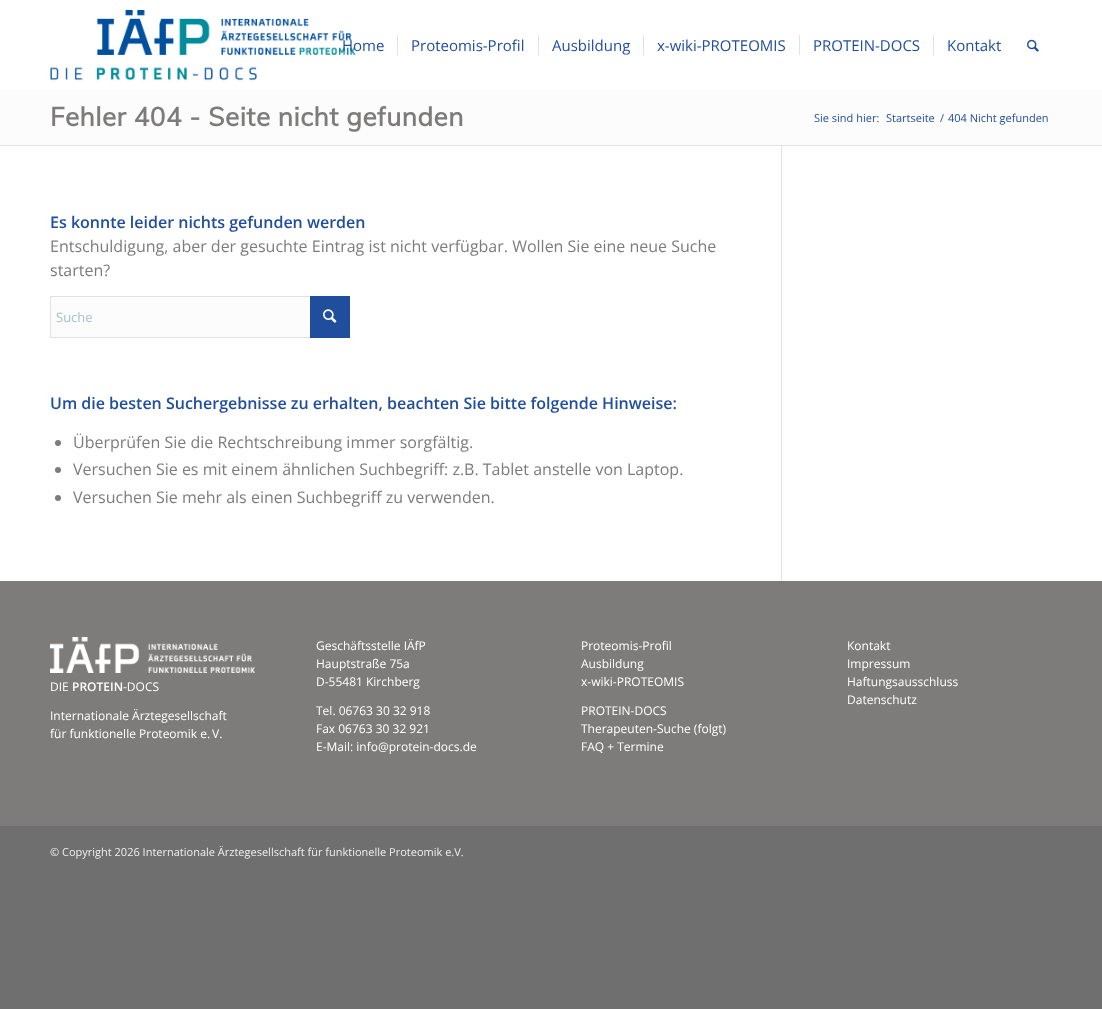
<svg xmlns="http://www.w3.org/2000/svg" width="1102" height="1009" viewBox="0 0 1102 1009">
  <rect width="100%" height="100%" fill="#706f6f"/>
  <rect x="0" y="0" width="1102" height="90" fill="#ffffff"/>
  <image x="50" y="8" width="306" height="75" href="img1.png"/>
  <text x="342" y="51" font-family="Open Sans" font-size="15" fill="#214e9c">Home</text>
  <text x="411" y="51" font-family="Open Sans" font-size="15" fill="#214e9c">Proteomis-Profil</text>
  <rect x="397" y="35" width="1" height="20" fill="#e1e1e1"/>
  <text x="552" y="51" font-family="Open Sans" font-size="15" fill="#214e9c">Ausbildung</text>
  <rect x="538" y="35" width="1" height="20" fill="#e1e1e1"/>
  <text x="657" y="51" font-family="Open Sans" font-size="15" fill="#214e9c">x-wiki-PROTEOMIS</text>
  <rect x="643" y="35" width="1" height="20" fill="#e1e1e1"/>
  <text x="813" y="51" font-family="Open Sans" font-size="15" fill="#214e9c">PROTEIN-DOCS</text>
  <rect x="799" y="35" width="1" height="20" fill="#e1e1e1"/>
  <text x="947" y="51" font-family="Open Sans" font-size="15" fill="#214e9c">Kontakt</text>
  <rect x="933" y="35" width="1" height="20" fill="#e1e1e1"/>
  <image x="1027" y="39" width="12" height="13" href="img2.png"/>
  <rect x="0" y="146" width="1102" height="435" fill="#ffffff"/>
  <rect x="0" y="90" width="1102" height="55" fill="#fcfcfc"/>
  <text x="50" y="126" font-family="Muli" font-size="26" font-weight="bold" letter-spacing="0.5" fill="#7d7c7b">Fehler 404 - Seite nicht gefunden</text>
  <text x="814" y="122" font-family="Open Sans" font-size="11" fill="#214e9c">Sie sind hier:</text>
  <text x="886" y="122" font-family="Open Sans" font-size="11" fill="#214e9c">Startseite</text>
  <text x="940" y="122" font-family="Open Sans" font-size="11" fill="#214e9c">/</text>
  <text x="948" y="122" font-family="Open Sans" font-size="11" fill="#214e9c">404 Nicht gefunden</text>
  <rect x="0" y="145" width="1102" height="1" fill="#e1e1e1"/>
  <rect x="781" y="146" width="1" height="435" fill="#e1e1e1"/>
  <text x="50" y="228" font-family="Open Sans" font-size="16" font-weight="600" fill="#214e9c">Es konnte leider nichts gefunden werden</text>
  <text x="50" y="252" font-family="Open Sans" font-size="16" fill="#7d7c7b">Entschuldigung, aber der gesuchte Eintrag ist nicht verfügbar. Wollen Sie eine neue Suche</text>
  <text x="50" y="276" font-family="Open Sans" font-size="16" fill="#7d7c7b">starten?</text>
  <rect x="51" y="297" width="259" height="40" fill="#fcfcfc"/>
  <rect x="50.5" y="296.5" width="299" height="41" fill="none" stroke="#e1e1e1"/>
  <text x="56" y="322" font-family="Open Sans" font-size="13" fill="#9fc4cb">Suche</text>
  <rect x="310" y="296" width="40" height="42" fill="#214e9c"/>
  <image x="323" y="309" width="14" height="14" href="img3.png"/>
  <text x="50" y="409" font-family="Open Sans" font-size="16" font-weight="600" fill="#214e9c">Um die besten Suchergebnisse zu erhalten, beachten Sie bitte folgende Hinweise:</text>
  <circle cx="58" cy="443" r="3" fill="#7d7c7b"/>
  <text x="73" y="448" font-family="Open Sans" font-size="16" fill="#7d7c7b">Überprüfen Sie die Rechtschreibung immer sorgfältig.</text>
  <circle cx="58" cy="470" r="3" fill="#7d7c7b"/>
  <text x="73" y="475" font-family="Open Sans" font-size="16" fill="#7d7c7b">Versuchen Sie es mit einem ähnlichen Suchbegriff: z.B. Tablet anstelle von Laptop.</text>
  <circle cx="58" cy="498" r="3" fill="#7d7c7b"/>
  <text x="73" y="503" font-family="Open Sans" font-size="16" fill="#7d7c7b">Versuchen Sie mehr als einen Suchbegriff zu verwenden.</text>
  <rect x="0" y="581" width="1102" height="245" fill="#7d7c7b"/>
  <image x="50" y="637" width="205" height="36" href="img4.png"/>
  <text x="50" y="691" font-family="Open Sans" font-size="12" fill="#ffffff">DIE</text>
  <text x="72" y="691" font-family="Open Sans" font-size="12" font-weight="600" fill="#ffffff">PROTEIN</text>
  <text x="123" y="691" font-family="Open Sans" font-size="12" fill="#ffffff">-DOCS</text>
  <text x="50" y="720" font-family="Open Sans" font-size="12" fill="#ffffff">Internationale Ärztegesellschaft</text>
  <text x="50" y="738" font-family="Open Sans" font-size="12" fill="#ffffff">für funktionelle Proteomik e. V.</text>
  <text x="316" y="650" font-family="Open Sans" font-size="12" fill="#ffffff">Geschäftsstelle IÄfP</text>
  <text x="316" y="668" font-family="Open Sans" font-size="12" fill="#ffffff">Hauptstraße 75a</text>
  <text x="316" y="686" font-family="Open Sans" font-size="12" fill="#ffffff">D-55481 Kirchberg</text>
  <text x="316" y="715" font-family="Open Sans" font-size="12" fill="#ffffff">Tel. 06763 30 32 918</text>
  <text x="316" y="733" font-family="Open Sans" font-size="12" fill="#ffffff">Fax 06763 30 32 921</text>
  <text x="316" y="751" font-family="Open Sans" font-size="12" fill="#ffffff">E-Mail: info@protein-docs.de</text>
  <text x="581" y="650" font-family="Open Sans" font-size="12" fill="#ffffff">Proteomis-Profil</text>
  <text x="581" y="668" font-family="Open Sans" font-size="12" fill="#ffffff">Ausbildung</text>
  <text x="581" y="686" font-family="Open Sans" font-size="12" fill="#ffffff">x-wiki-PROTEOMIS</text>
  <text x="581" y="715" font-family="Open Sans" font-size="12" fill="#ffffff">PROTEIN-DOCS</text>
  <text x="581" y="733" font-family="Open Sans" font-size="12" fill="#ffffff">Therapeuten-Suche (folgt)</text>
  <text x="581" y="751" font-family="Open Sans" font-size="12" fill="#ffffff">FAQ + Termine</text>
  <text x="847" y="650" font-family="Open Sans" font-size="12" fill="#ffffff">Kontakt</text>
  <text x="847" y="668" font-family="Open Sans" font-size="12" fill="#ffffff">Impressum</text>
  <text x="847" y="686" font-family="Open Sans" font-size="12" fill="#ffffff">Haftungsausschluss</text>
  <text x="847" y="704" font-family="Open Sans" font-size="12" fill="#ffffff">Datenschutz</text>
  <text x="50" y="856" font-family="Open Sans" font-size="11" fill="#eeeeee">© Copyright 2026 Internationale Ärztegesellschaft für funktionelle Proteomik e.V.</text>
</svg>
